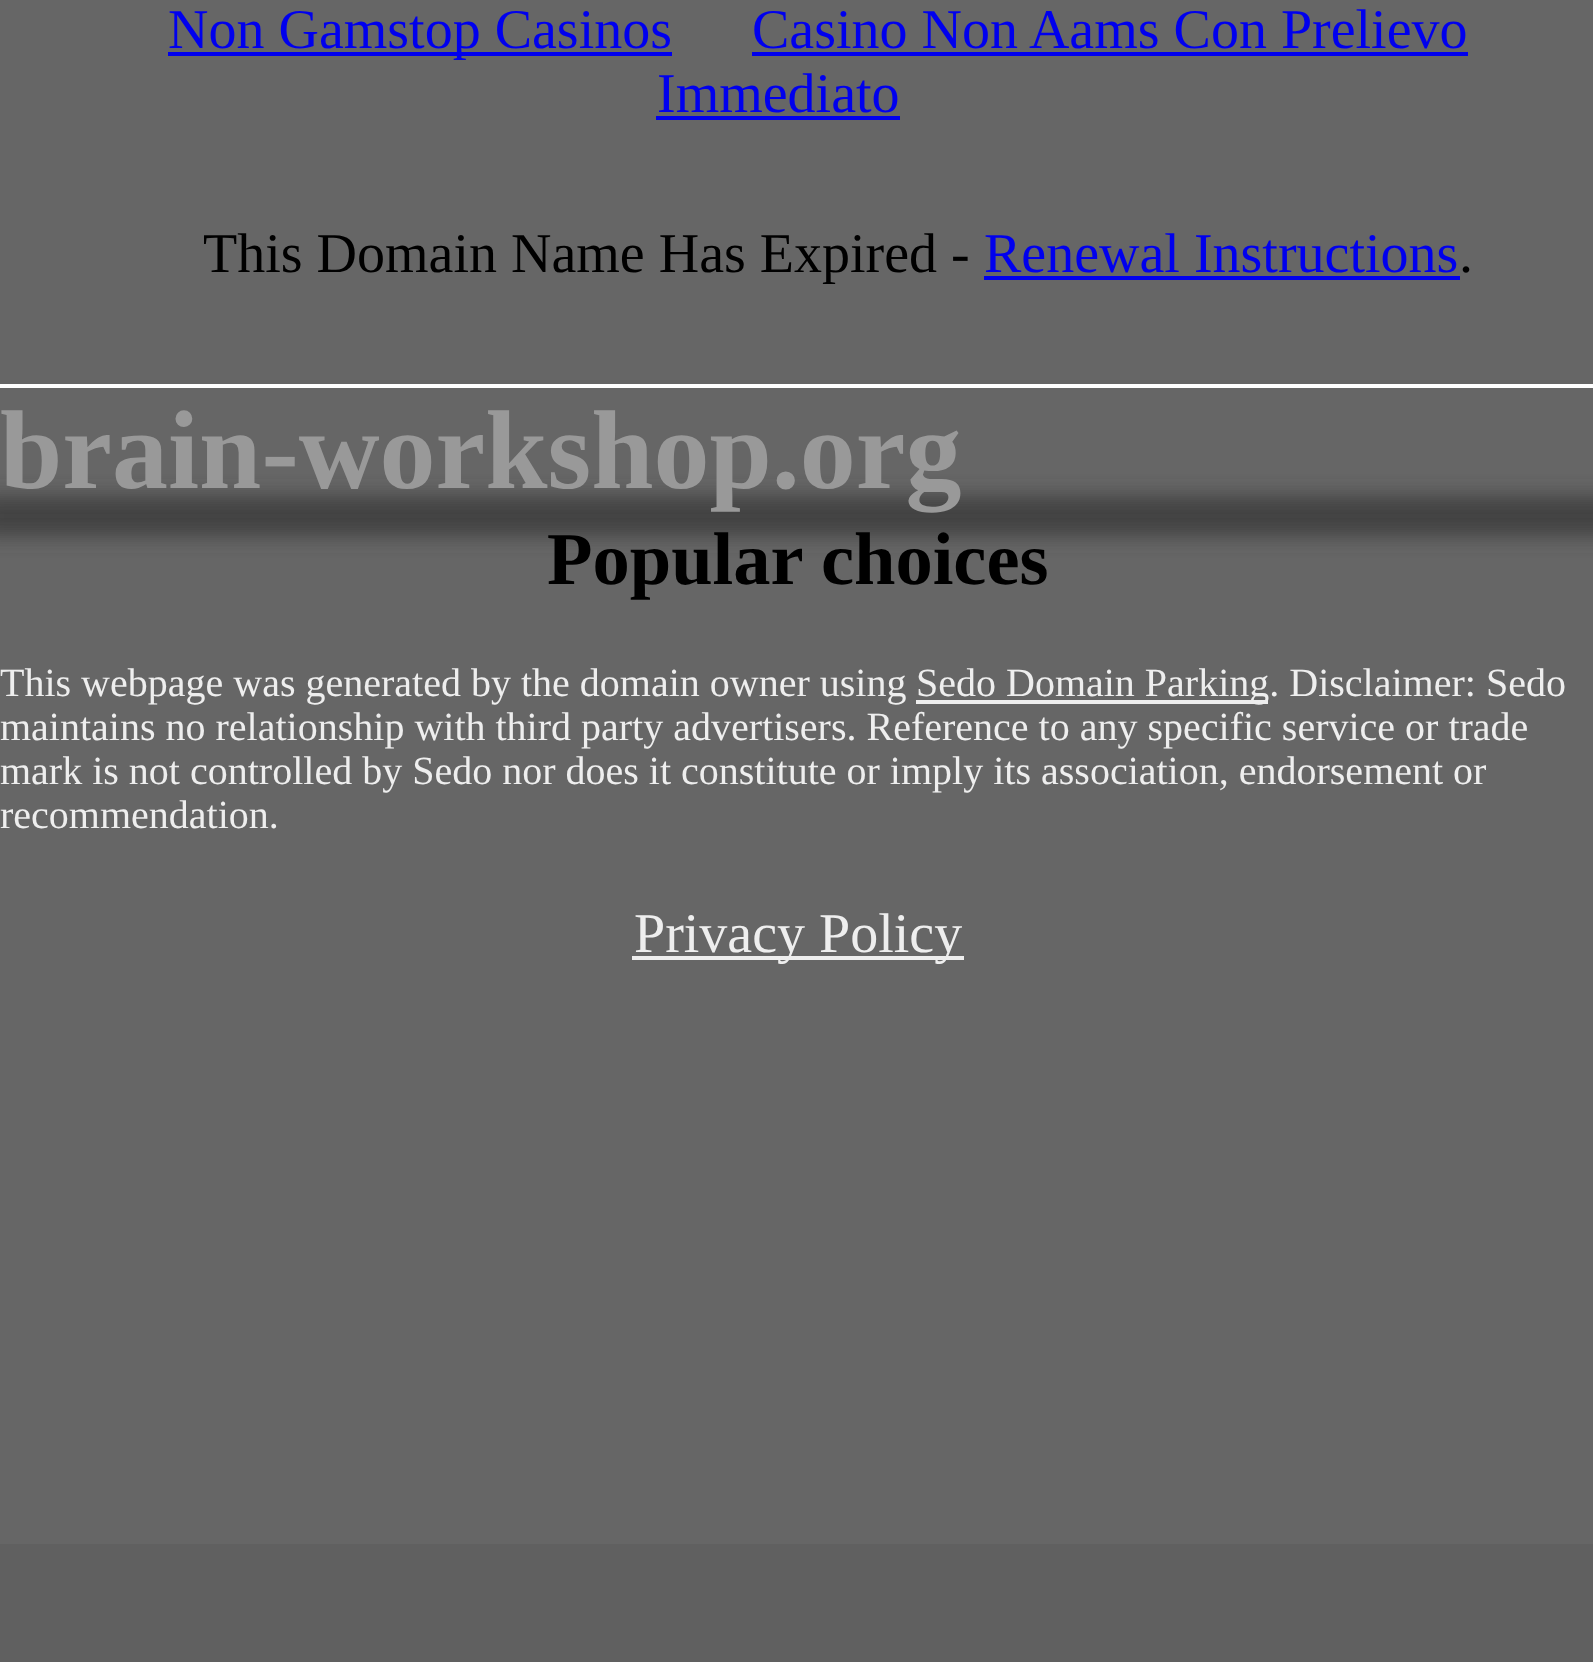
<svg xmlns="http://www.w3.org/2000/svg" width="1593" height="1662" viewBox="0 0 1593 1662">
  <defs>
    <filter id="blur1" x="-50%" y="-200%" width="200%" height="500%"><feGaussianBlur stdDeviation="10"/></filter>
  </defs>
  <rect width="100%" height="100%" fill="#666666"/>
  <rect x="168" y="52" width="504" height="4" fill="#0000ee"/>
  <text x="168" y="48" font-family="Liberation Serif" font-size="56" fill="#0000ee">Non Gamstop Casinos</text>
  <text x="752" y="48" font-family="Liberation Serif" font-size="56" fill="#0000ee">Casino Non Aams Con Prelievo</text>
  <rect x="752" y="52" width="716" height="4" fill="#0000ee"/>
  <text x="657" y="112" font-family="Liberation Serif" font-size="56" fill="#0000ee">Immediato</text>
  <rect x="656" y="116" width="244" height="4" fill="#0000ee"/>
  <rect x="0" y="384" width="1593" height="4" fill="#ffffff"/>
  <text x="203" y="272" font-family="Liberation Serif" font-size="56" fill="#000000">This Domain Name Has Expired -</text>
  <text x="984" y="272" font-family="Liberation Serif" font-size="56" fill="#0000ee">Renewal Instructions</text>
  <rect x="984" y="276" width="476" height="4" fill="#0000ee"/>
  <text x="1459" y="272" font-family="Liberation Serif" font-size="56" fill="#000000">.</text>
  <rect x="-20" y="496" width="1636" height="40" fill="#424242" filter="url(#blur1)"/>
  <text x="0" y="488" font-family="Liberation Serif" font-size="112" font-weight="bold" fill="#999999">brain-workshop.org</text>
  <text x="547" y="584" font-family="Liberation Serif" font-size="74.5" font-weight="bold" fill="#000000">Popular choices</text>
  <text x="0" y="696" font-family="Liberation Serif" font-size="40" fill="#eeeeee">This webpage was generated by the domain owner using</text>
  <rect x="916" y="700" width="352" height="4" fill="#eeeeee"/>
  <text x="916" y="696" font-family="Liberation Serif" font-size="40" fill="#eeeeee">Sedo Domain Parking. Disclaimer: Sedo</text>
  <text x="0" y="740" font-family="Liberation Serif" font-size="40" fill="#eeeeee">maintains no relationship with third party advertisers. Reference to any specific service or trade</text>
  <text x="0" y="784" font-family="Liberation Serif" font-size="40" fill="#eeeeee">mark is not controlled by Sedo nor does it constitute or imply its association, endorsement or</text>
  <text x="0" y="828" font-family="Liberation Serif" font-size="40" fill="#eeeeee">recommendation.</text>
  <rect x="632" y="956" width="332" height="4" fill="#eeeeee"/>
  <text x="634" y="952" font-family="Liberation Serif" font-size="56" fill="#eeeeee">Privacy Policy</text>
  <rect x="0" y="1544" width="1593" height="118" fill="#606060"/>
</svg>
